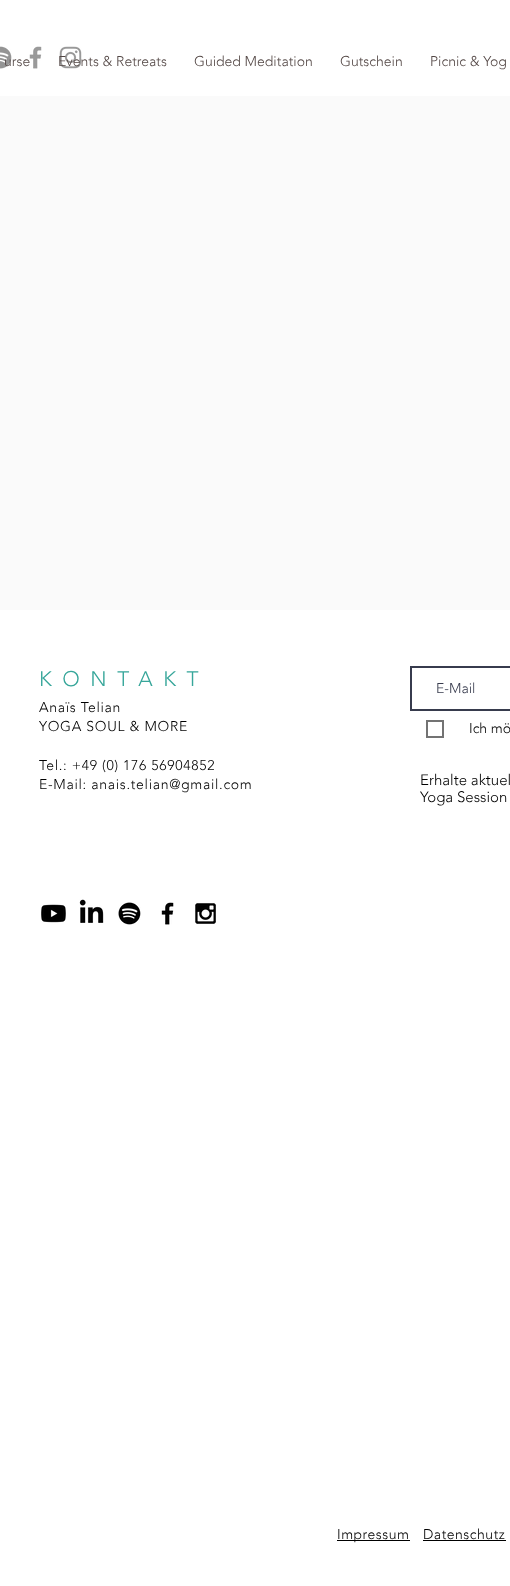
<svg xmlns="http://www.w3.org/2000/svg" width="510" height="1586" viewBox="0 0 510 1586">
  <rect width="100%" height="100%" fill="#ffffff"/>
  <image x="0" y="46" width="12" height="23" href="img1.png"/>
  <image x="29" y="46" width="13" height="23" href="img2.png"/>
  <image x="59" y="46" width="23" height="23" href="img3.png"/>
  <text x="4" y="66" font-family="'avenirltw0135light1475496'" font-size="14" font-weight="300" fill="#534745">urse</text>
  <text x="58" y="66" font-family="'avenirltw0135light1475496'" font-size="14" font-weight="300" fill="#534745">Events &amp; Retreats</text>
  <text x="194" y="66" font-family="'avenirltw0135light1475496'" font-size="14" font-weight="300" fill="#534745">Guided Meditation</text>
  <text x="340" y="66" font-family="'avenirltw0135light1475496'" font-size="14" font-weight="300" fill="#534745">Gutschein</text>
  <text x="430" y="66" font-family="'avenirltw0135light1475496'" font-size="14" font-weight="300" fill="#534745">Picnic &amp; Yog</text>
  <rect x="0" y="96" width="510" height="514" fill="#fafafa"/>
  <text x="39" y="686" font-family="'avenirltw0135light1475496'" font-size="21" font-weight="300" letter-spacing="10.5" fill="#37a69a">KONTAKT</text>
  <text x="39" y="712" font-family="'avenirltw0135light1475496'" font-size="14" font-weight="300" letter-spacing="0.7" fill="#000000">Anaïs Telian</text>
  <text x="39" y="731" font-family="'avenirltw0135light1475496'" font-size="14" font-weight="300" letter-spacing="0.7" fill="#000000">YOGA SOUL &amp; MORE</text>
  <text x="39" y="770" font-family="'avenirltw0135light1475496'" font-size="14" font-weight="300" letter-spacing="0.7" fill="#000000">Tel.: +49 (0) 176 56904852</text>
  <text x="39" y="789" font-family="'avenirltw0135light1475496'" font-size="14" font-weight="300" letter-spacing="0.7" fill="#000000">E-Mail: anais.telian@gmail.com</text>
  <rect x="411" y="667" width="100" height="43" fill="none" stroke="#373b4d" stroke-width="2"/>
  <text x="436" y="693" font-family="'avenirltw0135light1475496'" font-size="14" font-weight="300" fill="#373b4d">E-Mail</text>
  <rect x="427" y="721" width="16" height="16" fill="none" stroke="#737373" stroke-width="2"/>
  <text x="469" y="733" font-family="'avenirltw0135light1475496'" font-size="14" font-weight="300" fill="#000000">Ich mö</text>
  <text x="420" y="785" font-family="'avenirltw0135light1475496'" font-size="15" font-weight="300" fill="#000000">Erhalte aktuel</text>
  <text x="420" y="802" font-family="'avenirltw0135light1475496'" font-size="15" font-weight="300" fill="#000000">Yoga Session</text>
  <image x="41" y="904" width="25" height="19" href="img4.png"/>
  <image x="79" y="899" width="25" height="24" href="img5.png"/>
  <image x="118" y="902" width="23" height="23" href="img6.png"/>
  <image x="161" y="902" width="13" height="23" href="img7.png"/>
  <image x="195" y="903" width="21" height="21" href="img8.png"/>
  <rect x="337" y="1540" width="73" height="1" fill="#000000"/>
  <text x="337" y="1539" font-family="'avenirltw0135light1475496'" font-size="14" font-weight="300" letter-spacing="0.5" fill="#000000">Impressum</text>
  <text x="423" y="1539" font-family="'avenirltw0135light1475496'" font-size="14" font-weight="300" letter-spacing="0.5" fill="#000000">Datenschutz</text>
  <rect x="423" y="1540" width="83" height="1" fill="#000000"/>
</svg>
